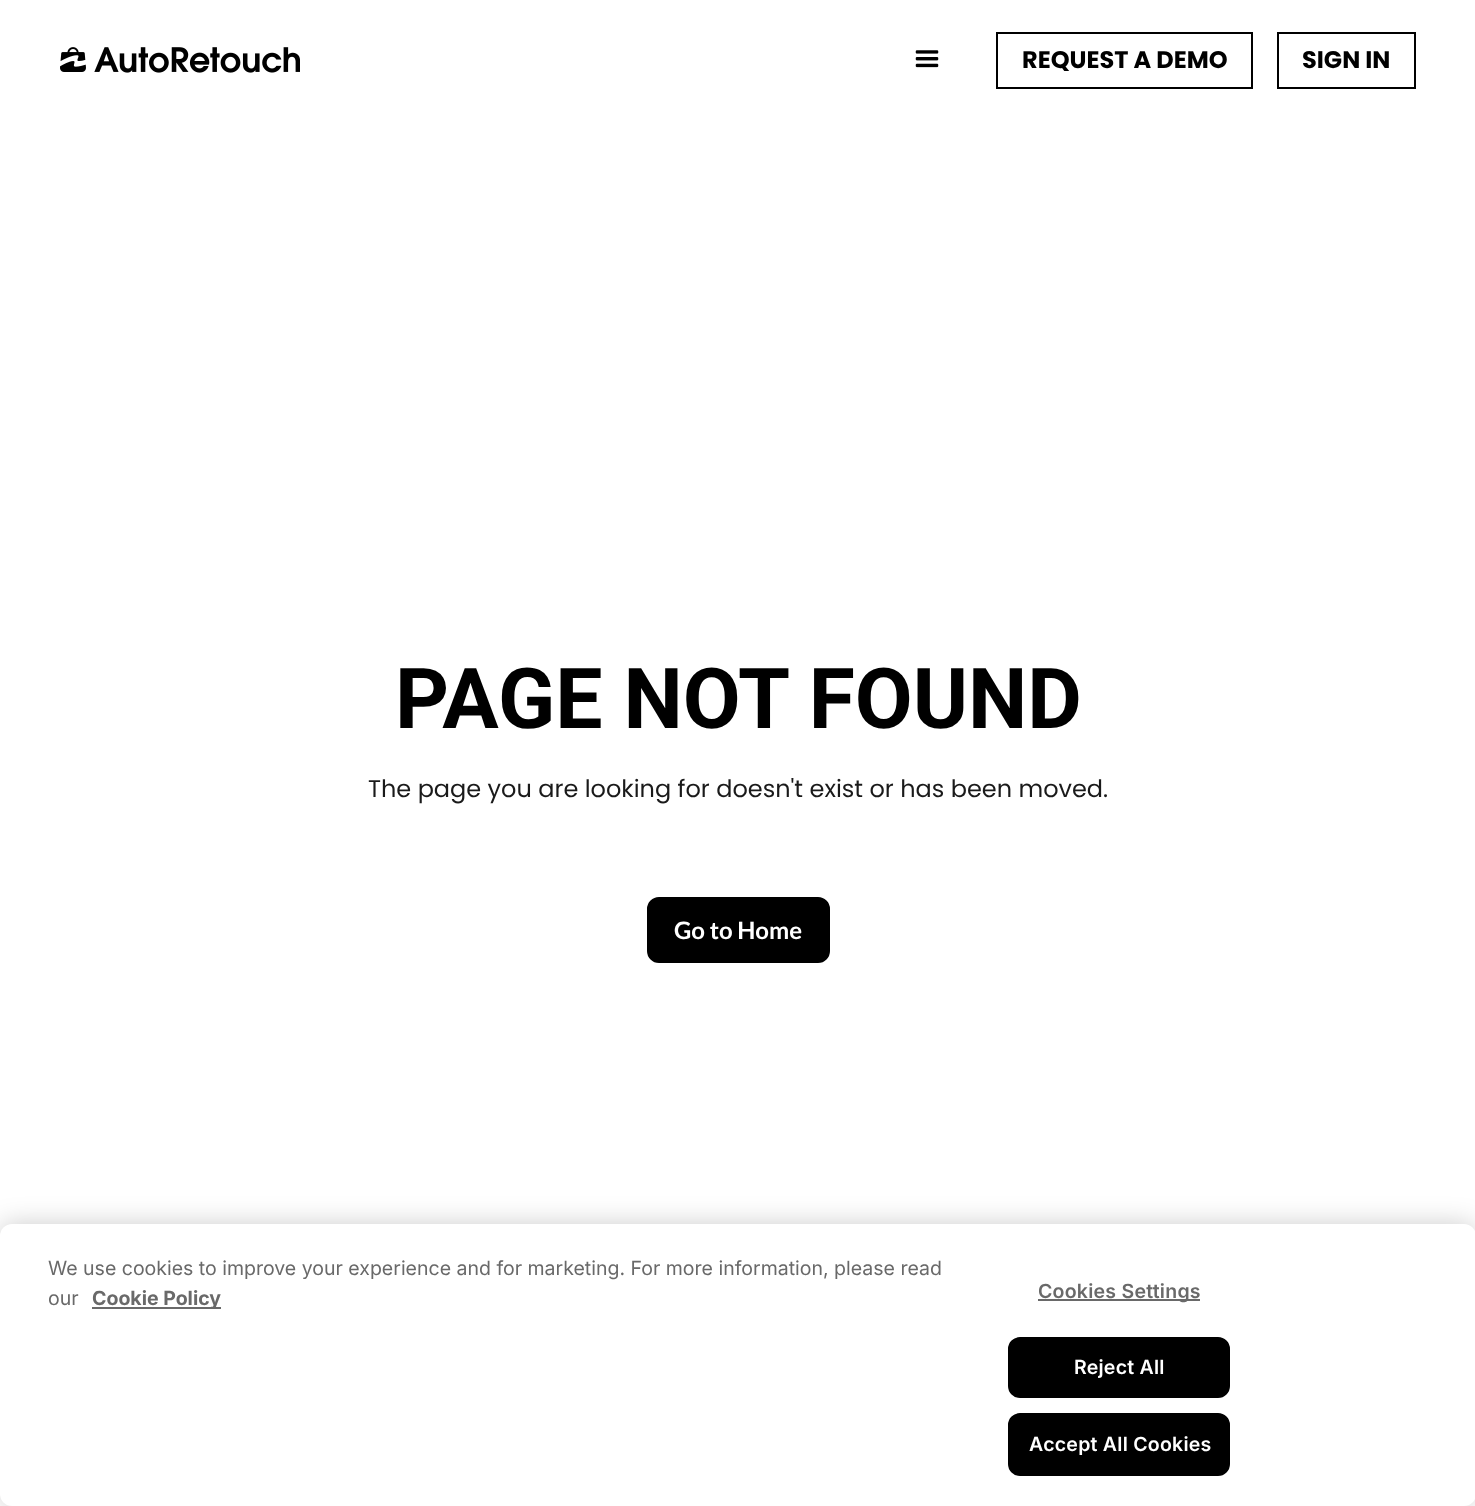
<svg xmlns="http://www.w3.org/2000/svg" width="1475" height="1506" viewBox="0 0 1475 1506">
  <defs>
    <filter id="blur1" x="-50%" y="-200%" width="200%" height="500%"><feGaussianBlur stdDeviation="13.5"/></filter>
  </defs>
  <rect width="100%" height="100%" fill="#ffffff"/>
  <image x="60" y="47" width="240" height="26" href="img1.png"/>
  <image x="915" y="50" width="24" height="18" href="img2.png"/>
  <rect x="997" y="33" width="255" height="55" fill="none" stroke="#000000" stroke-width="2"/>
  <text x="1022" y="68" font-family="Poppins" font-size="24" font-weight="bold" fill="#000000">REQUEST A DEMO</text>
  <rect x="1278" y="33" width="137" height="55" fill="none" stroke="#000000" stroke-width="2"/>
  <text x="1302" y="68" font-family="Poppins" font-size="24" font-weight="bold" fill="#000000">SIGN IN</text>
  <text x="395" y="728" font-family="Roboto" font-size="84" font-weight="bold" fill="#000000">PAGE NOT FOUND</text>
  <text x="368" y="797" font-family="Poppins" font-size="24" fill="#1a1a1a">The page you are looking for doesn't exist or has been moved.</text>
  <rect x="648.5" y="898.5" width="180" height="63" rx="10.5" fill="#000000" stroke="#000000" stroke-width="3"/>
  <text x="674" y="939" font-family="Lato" font-size="24" font-weight="bold" fill="#ffffff">Go to Home</text>
  <rect x="0" y="1224" width="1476" height="282" rx="12" fill="#000000" fill-opacity="0.2" filter="url(#blur1)"/>
  <rect x="0" y="1224" width="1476" height="282" rx="12" fill="#ffffff"/>
  <text x="48" y="1275" font-family="Inter" font-size="19.5" fill="#696969">We use cookies to improve your experience and for marketing. For more information, please read</text>
  <text x="48" y="1305" font-family="Inter" font-size="19.5" fill="#696969">our</text>
  <rect x="92" y="1307" width="129" height="2" fill="#696969"/>
  <text x="92" y="1305" font-family="Inter" font-size="19.5" font-weight="bold" fill="#696969">Cookie Policy</text>
  <rect x="1038" y="1299" width="162" height="2" fill="#696969"/>
  <text x="1038" y="1298" font-family="Inter" font-size="19.5" font-weight="600" letter-spacing="0.25" fill="#696969">Cookies Settings</text>
  <rect x="1009" y="1338" width="220" height="59" rx="11" fill="#000000" stroke="#000000" stroke-width="2"/>
  <text x="1074" y="1374" font-family="Inter" font-size="19.5" font-weight="600" letter-spacing="0.25" fill="#ffffff">Reject All</text>
  <rect x="1009" y="1414" width="220" height="61" rx="11" fill="#000000" stroke="#000000" stroke-width="2"/>
  <text x="1029" y="1451" font-family="Inter" font-size="19.5" font-weight="600" letter-spacing="0.25" fill="#ffffff">Accept All Cookies</text>
</svg>
